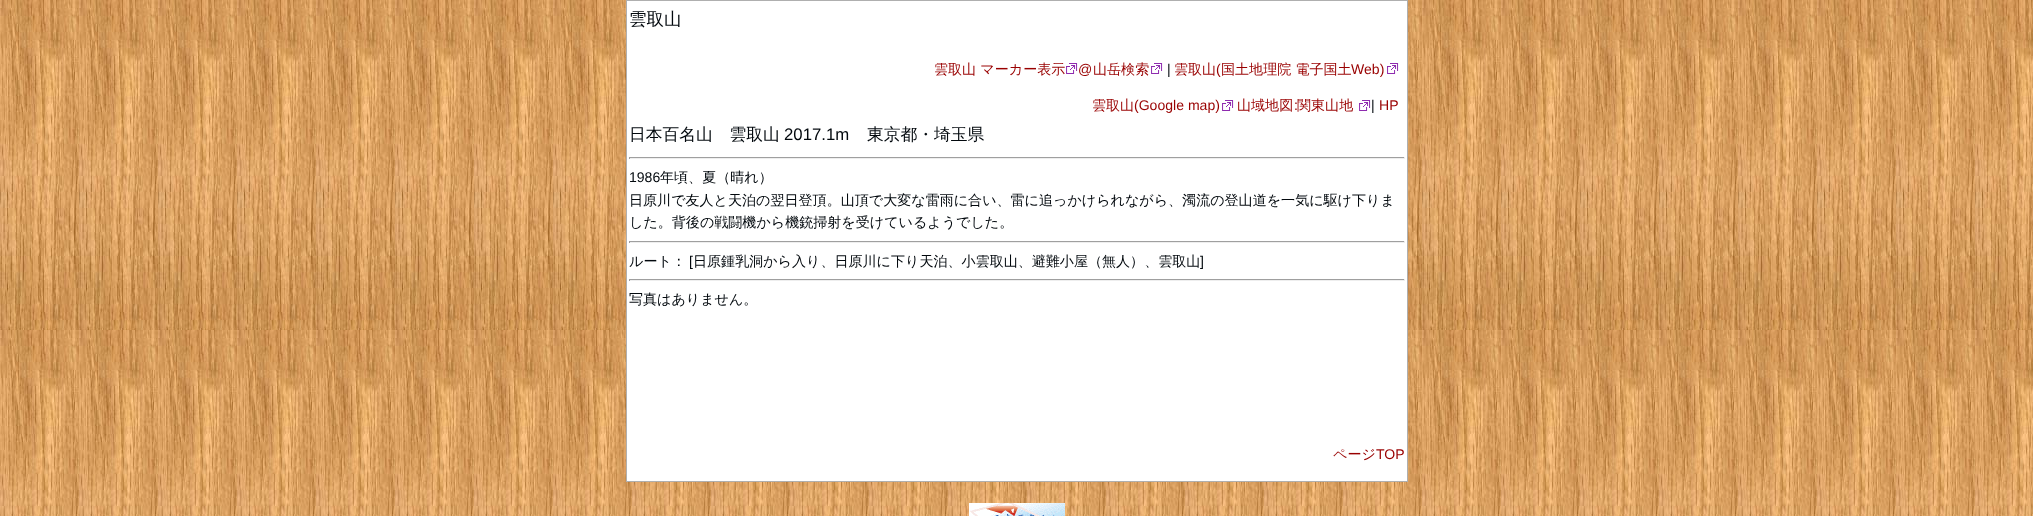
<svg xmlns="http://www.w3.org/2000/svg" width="2033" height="516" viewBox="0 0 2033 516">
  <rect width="100%" height="100%" fill="#ffffff"/>
  <image x="0" y="0" width="2033" height="516" href="img1.png"/>
  <rect x="626.5" y="0.5" width="781" height="481" fill="#ffffff" stroke="#afafaf"/>
  <text x="629" y="25" font-family="WenQuanYi Zen Hei" font-size="17.5" font-weight="500" fill="#02080d">雲取山</text>
  <text x="934" y="74" font-family="WenQuanYi Zen Hei" font-size="14.05" font-weight="500" fill="#990000">雲取山 マーカー表示</text>
  <image x="1066" y="63" width="12" height="11" href="img2.png"/>
  <text x="1078" y="74" font-family="Liberation Sans" font-size="14.05" fill="#990000">@</text>
  <text x="1093" y="74" font-family="WenQuanYi Zen Hei" font-size="14.05" font-weight="500" fill="#990000">山岳検索</text>
  <image x="1151" y="63" width="12" height="11" href="img2.png"/>
  <text x="1167" y="74" font-family="Liberation Sans" font-size="14.05" fill="#02080d">|</text>
  <text x="1174" y="74" font-family="WenQuanYi Zen Hei" font-size="14.05" font-weight="500" fill="#990000">雲取山</text>
  <text x="1216" y="74" font-family="Liberation Sans" font-size="14.05" fill="#990000">(</text>
  <text x="1221" y="74" font-family="WenQuanYi Zen Hei" font-size="14.05" font-weight="500" fill="#990000">国土地理院 電子国土</text>
  <text x="1351" y="74" font-family="Liberation Sans" font-size="14.05" fill="#990000">Web)</text>
  <image x="1387" y="63" width="12" height="11" href="img2.png"/>
  <text x="1092" y="110" font-family="WenQuanYi Zen Hei" font-size="14.05" font-weight="500" fill="#990000">雲取山</text>
  <text x="1134" y="110" font-family="Liberation Sans" font-size="14.05" fill="#990000">(Google map)</text>
  <image x="1222" y="100" width="12" height="11" href="img2.png"/>
  <text x="1237" y="110" font-family="WenQuanYi Zen Hei" font-size="14.05" font-weight="500" fill="#990000">山域地図</text>
  <text x="1294" y="110" font-family="Liberation Sans" font-size="14.05" fill="#990000">:</text>
  <text x="1297" y="110" font-family="WenQuanYi Zen Hei" font-size="14.05" font-weight="500" fill="#990000">関東山地</text>
  <image x="1359" y="100" width="12" height="11" href="img2.png"/>
  <text x="1371" y="110" font-family="Liberation Sans" font-size="14.05" fill="#02080d">|</text>
  <text x="1379" y="110" font-family="Liberation Sans" font-size="14.05" fill="#990000">HP</text>
  <text x="629" y="140" font-family="WenQuanYi Zen Hei" font-size="16.75" font-weight="500" fill="#02080d">日本百名山　雲取山</text>
  <text x="784" y="140" font-family="Liberation Sans" font-size="16.75" fill="#02080d">2017.1m</text>
  <text x="867" y="140" font-family="WenQuanYi Zen Hei" font-size="16.75" font-weight="500" fill="#02080d">東京都・埼玉県</text>
  <rect x="629" y="157" width="776" height="1" fill="#9f9f9f"/>
  <rect x="1404" y="157" width="1" height="2" fill="#eeeeee"/>
  <rect x="629" y="158" width="776" height="1" fill="#eeeeee"/>
  <rect x="629" y="157" width="1" height="2" fill="#9f9f9f"/>
  <text x="629" y="182" font-family="Liberation Sans" font-size="14.05" fill="#02080d">1986</text>
  <text x="660" y="182" font-family="WenQuanYi Zen Hei" font-size="14.05" font-weight="500" fill="#02080d">年頃、夏（晴れ）</text>
  <text x="629" y="205" font-family="WenQuanYi Zen Hei" font-size="14.05" font-weight="500" fill="#02080d">日原川で友人と天泊の翌日登頂。山頂で大変な雷雨に合い、雷に追っかけられながら、濁流の登山道を一気に駆け下りま</text>
  <text x="629" y="227" font-family="WenQuanYi Zen Hei" font-size="14.05" font-weight="500" fill="#02080d">した。背後の戦闘機から機銃掃射を受けているようでした。</text>
  <rect x="629" y="241" width="776" height="1" fill="#9f9f9f"/>
  <rect x="1404" y="241" width="1" height="2" fill="#eeeeee"/>
  <rect x="629" y="242" width="776" height="1" fill="#eeeeee"/>
  <rect x="629" y="241" width="1" height="2" fill="#9f9f9f"/>
  <text x="629" y="266" font-family="WenQuanYi Zen Hei" font-size="14.05" font-weight="500" fill="#02080d">ルート：</text>
  <text x="689" y="266" font-family="Liberation Sans" font-size="14.05" fill="#02080d">[</text>
  <text x="693" y="266" font-family="WenQuanYi Zen Hei" font-size="14.05" font-weight="500" fill="#02080d">日原鍾乳洞から入り、日原川に下り天泊、小雲取山、避難小屋（無人）、雲取山</text>
  <text x="1200" y="266" font-family="Liberation Sans" font-size="14.05" fill="#02080d">]</text>
  <rect x="629" y="279" width="776" height="1" fill="#9f9f9f"/>
  <rect x="1404" y="279" width="1" height="2" fill="#eeeeee"/>
  <rect x="629" y="280" width="776" height="1" fill="#eeeeee"/>
  <rect x="629" y="279" width="1" height="2" fill="#9f9f9f"/>
  <text x="629" y="304" font-family="WenQuanYi Zen Hei" font-size="14.05" font-weight="500" fill="#02080d">写真はありません。</text>
  <text x="1333" y="459" font-family="WenQuanYi Zen Hei" font-size="14.05" font-weight="500" fill="#990000">ページ</text>
  <text x="1376" y="459" font-family="Liberation Sans" font-size="14.05" fill="#990000">TOP</text>
  <image x="969" y="503" width="96" height="13" href="img3.png"/>
</svg>
